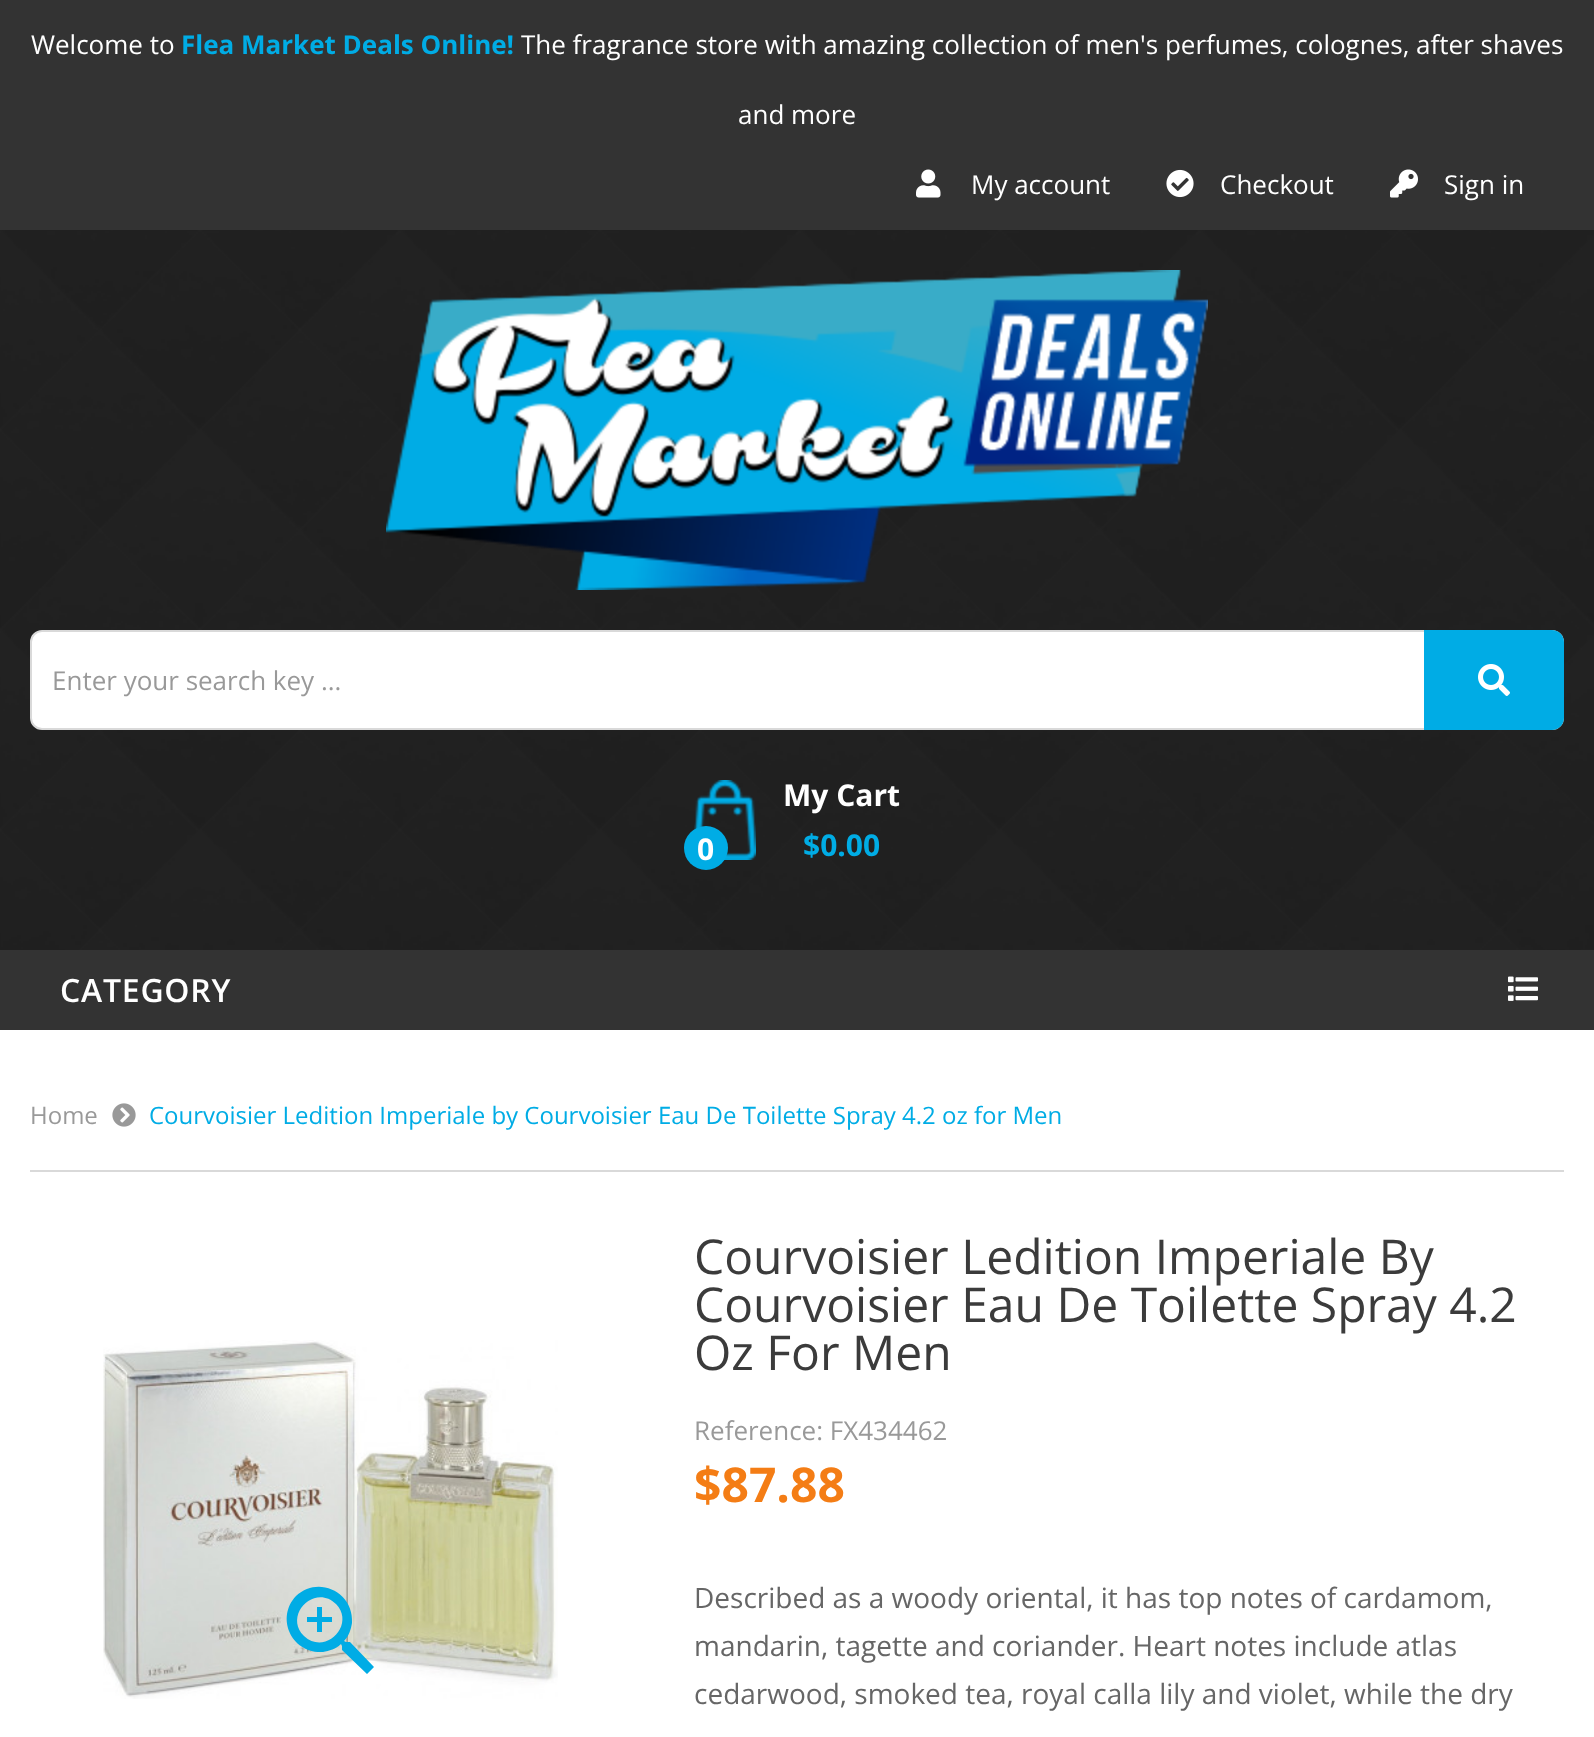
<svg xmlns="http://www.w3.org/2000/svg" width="1594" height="1737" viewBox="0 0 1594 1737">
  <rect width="100%" height="100%" fill="#ffffff"/>
  <rect x="0" y="0" width="1594" height="230" fill="#333333"/>
  <text x="31" y="54" font-family="Open Sans" font-size="26" fill="#ffffff">Welcome to</text>
  <text x="181" y="54" font-family="Open Sans" font-size="26" font-weight="bold" fill="#00ace5">Flea Market Deals Online!</text>
  <text x="521" y="54" font-family="Open Sans" font-size="26" fill="#ffffff">The fragrance store with amazing collection of men's perfumes, colognes, after shaves</text>
  <text x="738" y="124" font-family="Open Sans" font-size="26" fill="#ffffff">and more</text>
  <image x="916" y="169" width="25" height="29" href="img1.png"/>
  <text x="971" y="194" font-family="Open Sans" font-size="26" fill="#ffffff">My account</text>
  <image x="1166" y="169" width="28" height="29" href="img2.png"/>
  <text x="1220" y="194" font-family="Open Sans" font-size="26" fill="#ffffff">Checkout</text>
  <image x="1390" y="169" width="28" height="29" href="img3.png"/>
  <text x="1444" y="194" font-family="Open Sans" font-size="26" fill="#ffffff">Sign in</text>
  <image x="0" y="230" width="1594" height="720" href="img4.png"/>
  <image x="386" y="270" width="822" height="320" href="img5.png"/>
  <rect x="31" y="631" width="1532" height="98" rx="11" fill="#ffffff" stroke="#d9d9d9" stroke-width="2"/>
  <text x="52" y="690" font-family="Open Sans" font-size="26" fill="#999999">Enter your search key ...</text>
  <path d="M1424 630H1552C1558.5 630 1564 635.5 1564 642V718C1564 724.5 1558.5 730 1552 730H1424Z" fill="#00ace5"/>
  <image x="1478" y="664" width="32" height="32" href="img6.png"/>
  <image x="694" y="780" width="62" height="80" href="img7.png"/>
  <text x="783" y="806" font-family="Open Sans" font-size="30" font-weight="bold" fill="#ffffff">My Cart</text>
  <circle cx="706" cy="848" r="22" fill="#00ace5"/>
  <text x="697" y="860" font-family="Open Sans" font-size="30" font-weight="bold" fill="#ffffff">0</text>
  <text x="803" y="856" font-family="Open Sans" font-size="30" font-weight="bold" fill="#00ace5">$0.00</text>
  <rect x="0" y="950" width="1594" height="80" fill="#333333"/>
  <text x="60" y="1002" font-family="Open Sans" font-size="32" font-weight="600" letter-spacing="0.75" fill="#ffffff">CATEGORY</text>
  <image x="1508" y="976" width="30" height="25" href="img8.png"/>
  <rect x="30" y="1170" width="1534" height="2" fill="#d9d9d9"/>
  <text x="30" y="1124" font-family="Open Sans" font-size="24" fill="#999999">Home</text>
  <image x="112" y="1103" width="24" height="24" href="img9.png"/>
  <text x="149" y="1124" font-family="Open Sans" font-size="24" fill="#00ace5">Courvoisier Ledition Imperiale by Courvoisier Eau De Toilette Spray 4.2 oz for Men</text>
  <image x="103" y="1340" width="455" height="359" href="img10.png"/>
  <path d="M332 1622H322V1632H317V1622H307V1617H317V1607H322V1617H332ZM304 1636C325 1656 356 1625 336 1604C315 1583 283 1615 304 1636ZM350 1642L374 1667L367 1674L342 1650V1646L341 1644C336 1649 329 1651 323 1652C292 1654 275 1618 296 1596C318 1575 354 1592 352 1623C351 1629 349 1636 344 1641L346 1642Z" fill="#00ace5"/>
  <text x="694" y="1274" font-family="Open Sans" font-size="48" fill="#3b3b3b">Courvoisier Ledition Imperiale By</text>
  <text x="694" y="1322" font-family="Open Sans" font-size="48" fill="#3b3b3b">Courvoisier Eau De Toilette Spray 4.2</text>
  <text x="694" y="1370" font-family="Open Sans" font-size="48" fill="#3b3b3b">Oz For Men</text>
  <text x="694" y="1440" font-family="Open Sans" font-size="26" fill="#999999">Reference: FX434462</text>
  <text x="694" y="1502" font-family="Open Sans" font-size="48" font-weight="bold" fill="#f47d15">$87.88</text>
  <text x="694" y="1608" font-family="Open Sans" font-size="28" fill="#666666">Described as a woody oriental, it has top notes of cardamom,</text>
  <text x="694" y="1656" font-family="Open Sans" font-size="28" fill="#666666">mandarin, tagette and coriander. Heart notes include atlas</text>
  <text x="694" y="1704" font-family="Open Sans" font-size="28" fill="#666666">cedarwood, smoked tea, royal calla lily and violet, while the dry</text>
</svg>
